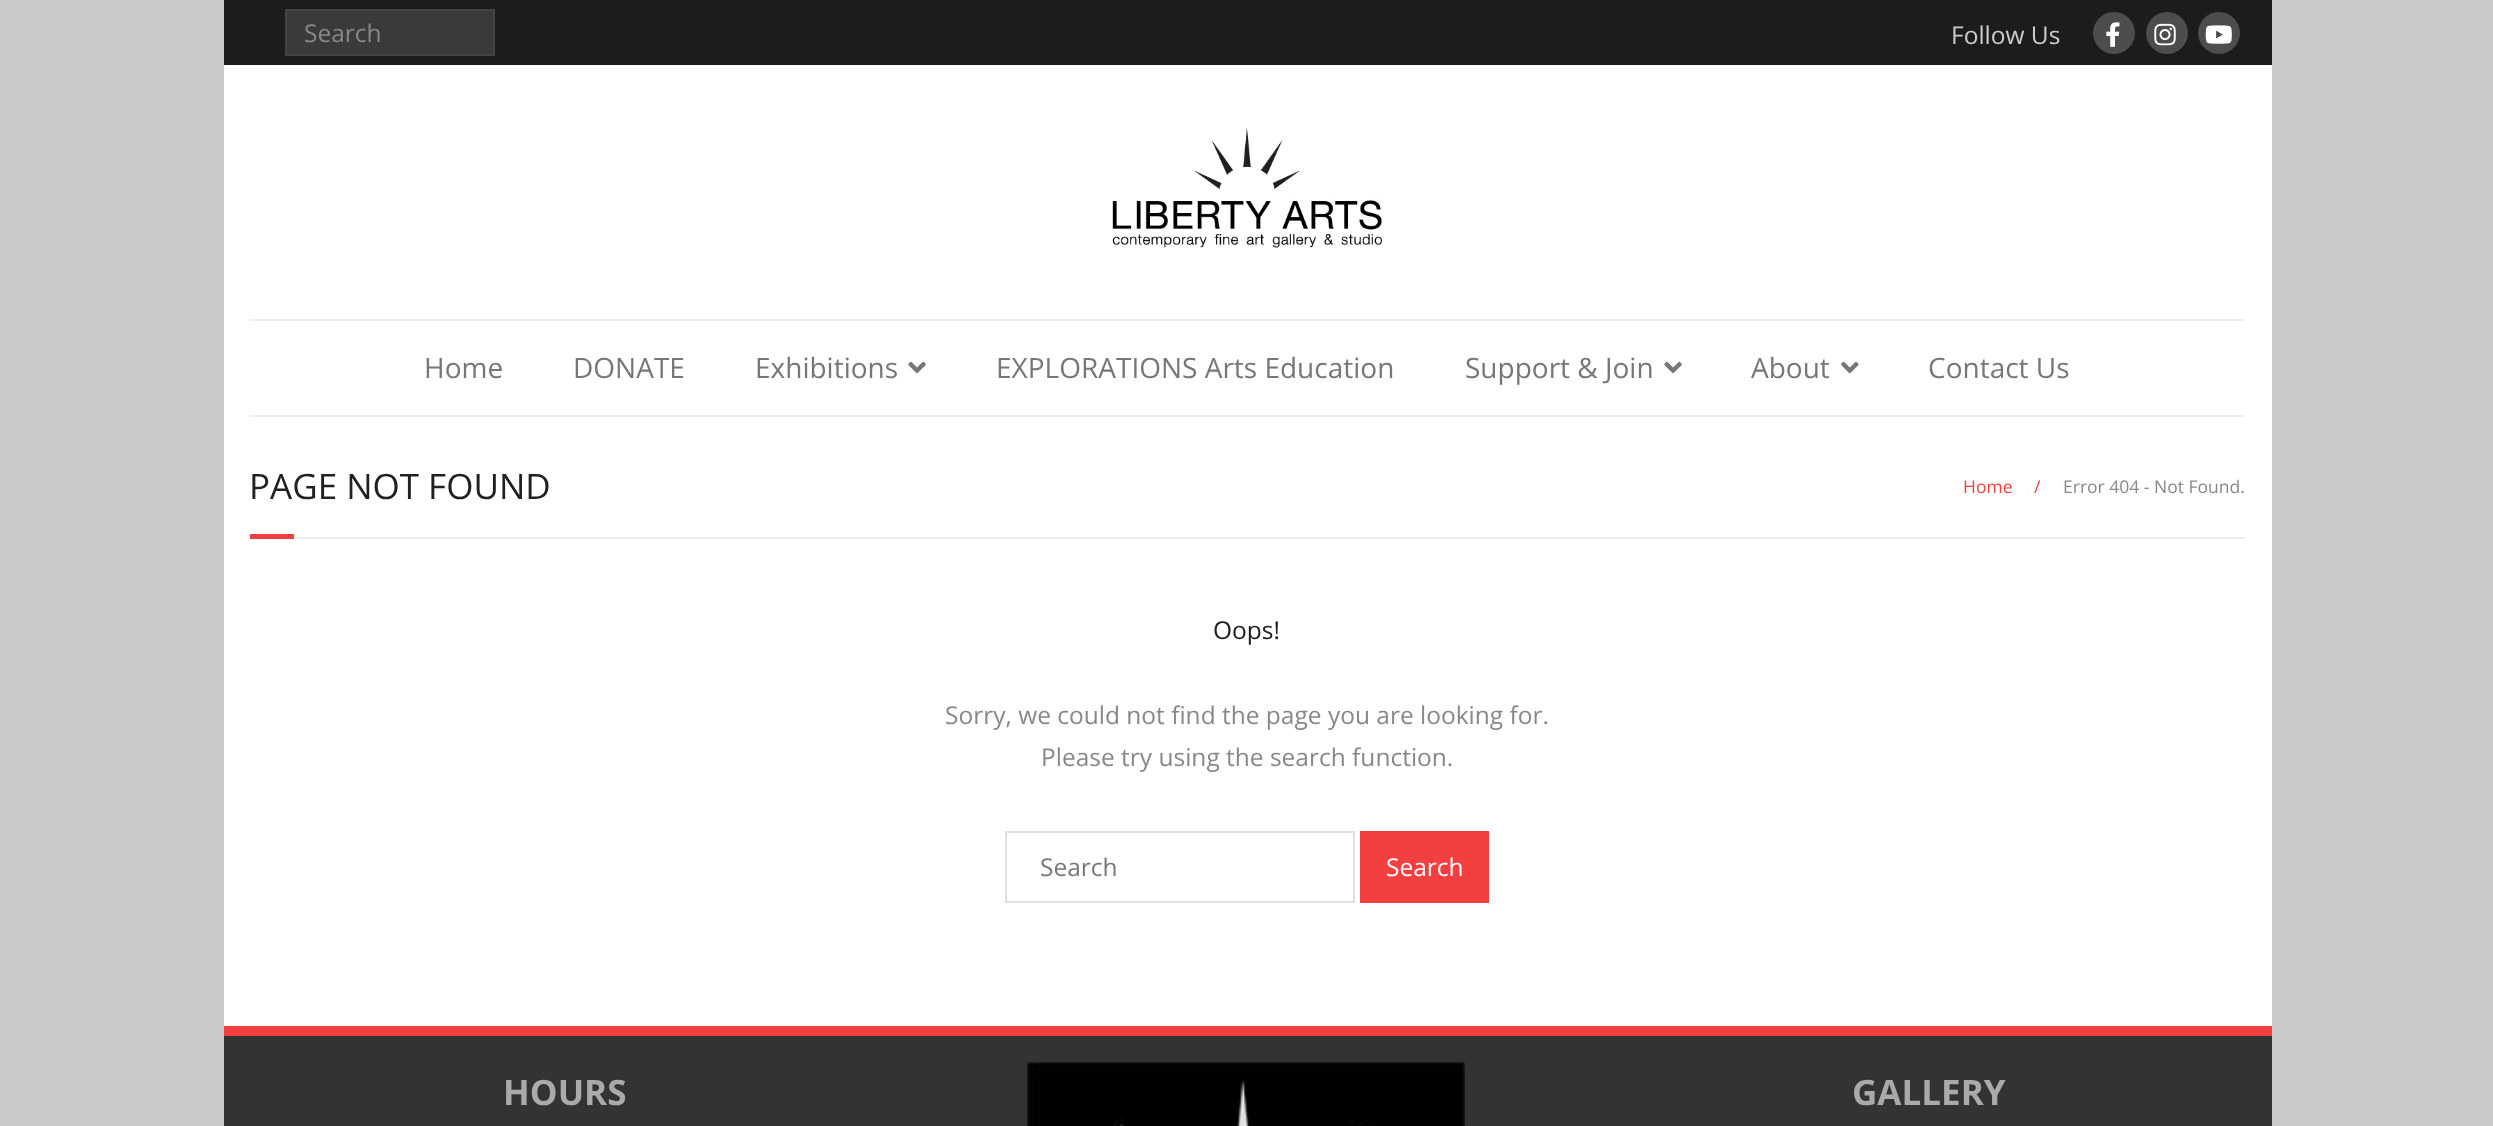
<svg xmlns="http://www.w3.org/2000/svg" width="2493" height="1126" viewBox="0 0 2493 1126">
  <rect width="100%" height="100%" fill="#c9c9c9"/>
  <rect x="224" y="65" width="2048" height="961" fill="#ffffff"/>
  <rect x="224" y="0" width="2048" height="65" fill="#1c1c1c"/>
  <rect x="286" y="10" width="208" height="45" fill="#3a3a3a" stroke="#444444" stroke-width="2"/>
  <text x="304" y="42" font-family="Open Sans" font-size="24.5" fill="#888888">Search</text>
  <text x="1951" y="44" font-family="Open Sans" font-size="24.5" fill="#cccccc">Follow Us</text>
  <circle cx="2114" cy="33" r="21" fill="#4d4d4d"/>
  <image x="2106" y="22" width="14" height="25" href="img1.png"/>
  <circle cx="2167" cy="33" r="21" fill="#4d4d4d"/>
  <image x="2154" y="23" width="22" height="23" href="img2.png"/>
  <circle cx="2219" cy="33" r="21" fill="#4d4d4d"/>
  <image x="2205" y="25" width="27" height="19" href="img3.png"/>
  <image x="1112" y="128" width="270" height="120" href="img4.png"/>
  <rect x="250" y="319" width="1995" height="2" fill="#eeeeee"/>
  <rect x="250" y="415" width="1995" height="2" fill="#eeeeee"/>
  <text x="424" y="378" font-family="Open Sans" font-size="28" fill="#777777">Home</text>
  <text x="573" y="378" font-family="Open Sans" font-size="28" fill="#777777">DONATE</text>
  <text x="755" y="378" font-family="Open Sans" font-size="28" fill="#777777">Exhibitions</text>
  <image x="908" y="361" width="18" height="13" href="img5.png"/>
  <text x="996" y="378" font-family="Open Sans" font-size="28" fill="#777777">EXPLORATIONS Arts Education</text>
  <text x="1465" y="378" font-family="Open Sans" font-size="28" fill="#777777">Support &amp; Join</text>
  <image x="1664" y="361" width="18" height="13" href="img5.png"/>
  <text x="1751" y="378" font-family="Open Sans" font-size="28" fill="#777777">About</text>
  <image x="1841" y="361" width="18" height="13" href="img6.png"/>
  <text x="1928" y="378" font-family="Open Sans" font-size="28" fill="#777777">Contact Us</text>
  <text x="249" y="499" font-family="Open Sans" font-size="35" fill="#202020">PAGE NOT FOUND</text>
  <text x="1963" y="493" font-family="Open Sans" font-size="17.5" fill="#f33f3f">Home</text>
  <text x="2034" y="493" font-family="Open Sans" font-size="17.5" fill="#f33f3f">/</text>
  <text x="2063" y="493" font-family="Open Sans" font-size="17.5" fill="#888888">Error 404 - Not Found.</text>
  <rect x="250" y="534" width="44" height="5" fill="#f33f3f"/>
  <rect x="294" y="537" width="1951" height="2" fill="#eeeeee"/>
  <text x="1213" y="639" font-family="Open Sans" font-size="24.5" fill="#202020">Oops!</text>
  <text x="945" y="724" font-family="Open Sans" font-size="24.5" fill="#888888">Sorry, we could not find the page you are looking for.</text>
  <text x="1041" y="766" font-family="Open Sans" font-size="24.5" fill="#888888">Please try using the search function.</text>
  <rect x="1006" y="832" width="348" height="70" fill="none" stroke="#e0e0e0" stroke-width="2"/>
  <text x="1040" y="876" font-family="Open Sans" font-size="24.5" fill="#777777">Search</text>
  <rect x="1360" y="831" width="129" height="72" fill="#f33f3f"/>
  <text x="1386" y="876" font-family="Open Sans" font-size="24.5" fill="#ffffff">Search</text>
  <rect x="224" y="1036" width="2048" height="90" fill="#333333"/>
  <rect x="224" y="1026" width="2048" height="10" fill="#f33f3f"/>
  <text x="503" y="1105" font-family="Open Sans" font-size="35" font-weight="bold" fill="#aaaaaa">HOURS</text>
  <image x="1027" y="1062" width="438" height="64" href="img7.png"/>
  <text x="1852" y="1105" font-family="Open Sans" font-size="35" font-weight="bold" fill="#aaaaaa">GALLERY</text>
</svg>
